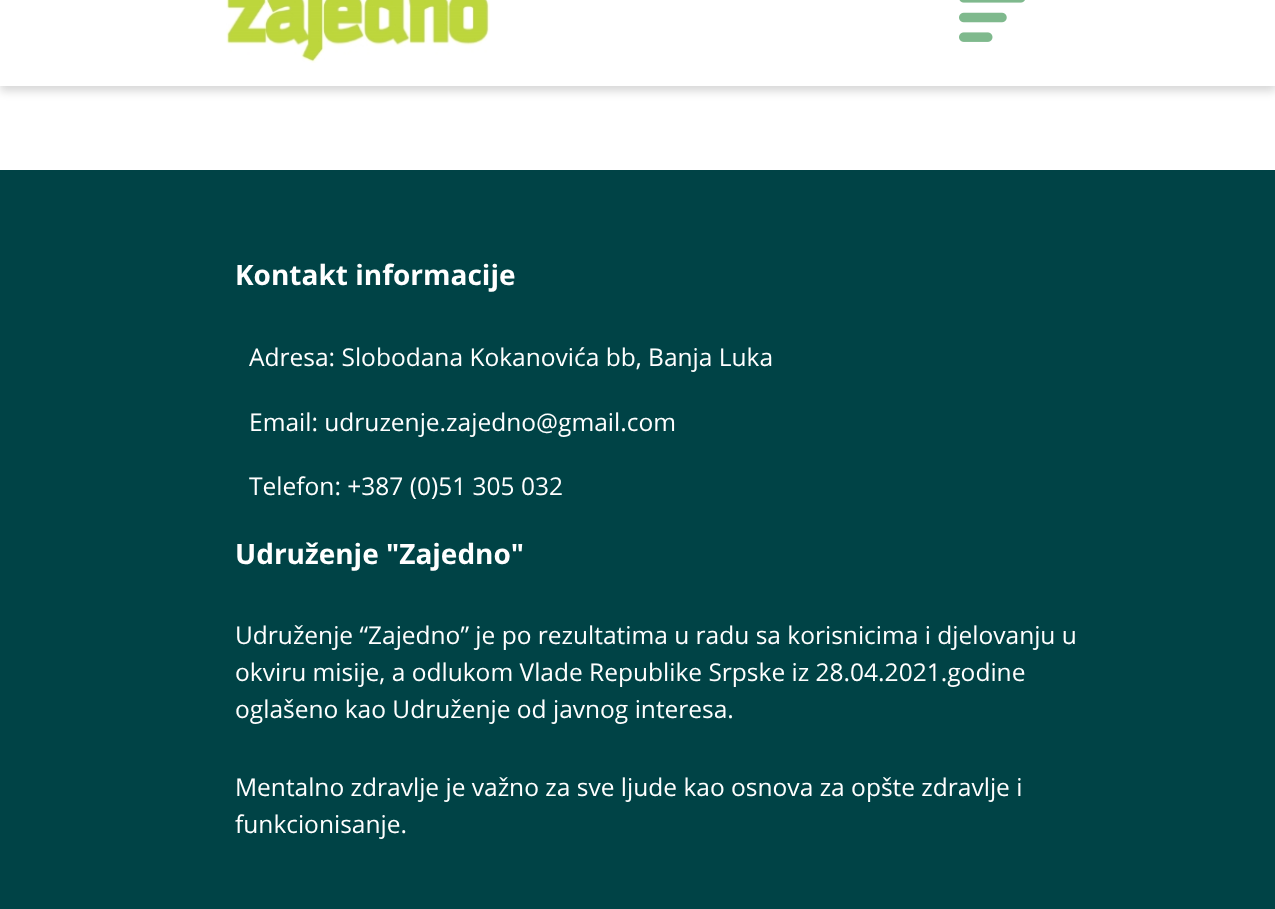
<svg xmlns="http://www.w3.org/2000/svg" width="1275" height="909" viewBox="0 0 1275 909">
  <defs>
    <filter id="blur1" x="-50%" y="-200%" width="200%" height="500%"><feGaussianBlur stdDeviation="5"/></filter>
  </defs>
  <rect width="100%" height="100%" fill="#ffffff"/>
  <rect x="0" y="-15" width="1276" height="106" fill="#000000" fill-opacity="0.16" filter="url(#blur1)"/>
  <rect x="0" y="0" width="1275" height="86" fill="#ffffff"/>
  <image x="226" y="0" width="264" height="63" href="img1.png"/>
  <image x="959" y="0" width="66" height="42" href="img2.png"/>
  <rect x="0" y="170" width="1275" height="739" fill="#004346"/>
  <text x="235" y="285" font-family="Open Sans" font-size="28" font-weight="bold" fill="#ffffff">Kontakt informacije</text>
  <text x="249" y="366" font-family="Open Sans" font-size="24.5" fill="#ffffff">Adresa: Slobodana Kokanovića bb, Banja Luka</text>
  <text x="249" y="431" font-family="Open Sans" font-size="24.5" fill="#ffffff">Email: udruzenje.zajedno@gmail.com</text>
  <text x="249" y="495" font-family="Open Sans" font-size="24.5" fill="#ffffff">Telefon: +387 (0)51 305 032</text>
  <text x="235" y="564" font-family="Open Sans" font-size="28" font-weight="bold" fill="#ffffff">Udruženje "Zajedno"</text>
  <text x="235" y="644" font-family="Open Sans" font-size="24.5" fill="#ffffff">Udruženje “Zajedno” je po rezultatima u radu sa korisnicima i djelovanju u</text>
  <text x="235" y="681" font-family="Open Sans" font-size="24.5" fill="#ffffff">okviru misije, a odlukom Vlade Republike Srpske iz 28.04.2021.godine</text>
  <text x="235" y="718" font-family="Open Sans" font-size="24.5" fill="#ffffff">oglašeno kao Udruženje od javnog interesa.</text>
  <text x="235" y="796" font-family="Open Sans" font-size="24.5" fill="#ffffff">Mentalno zdravlje je važno za sve ljude kao osnova za opšte zdravlje i</text>
  <text x="235" y="833" font-family="Open Sans" font-size="24.5" fill="#ffffff">funkcionisanje.</text>
</svg>
